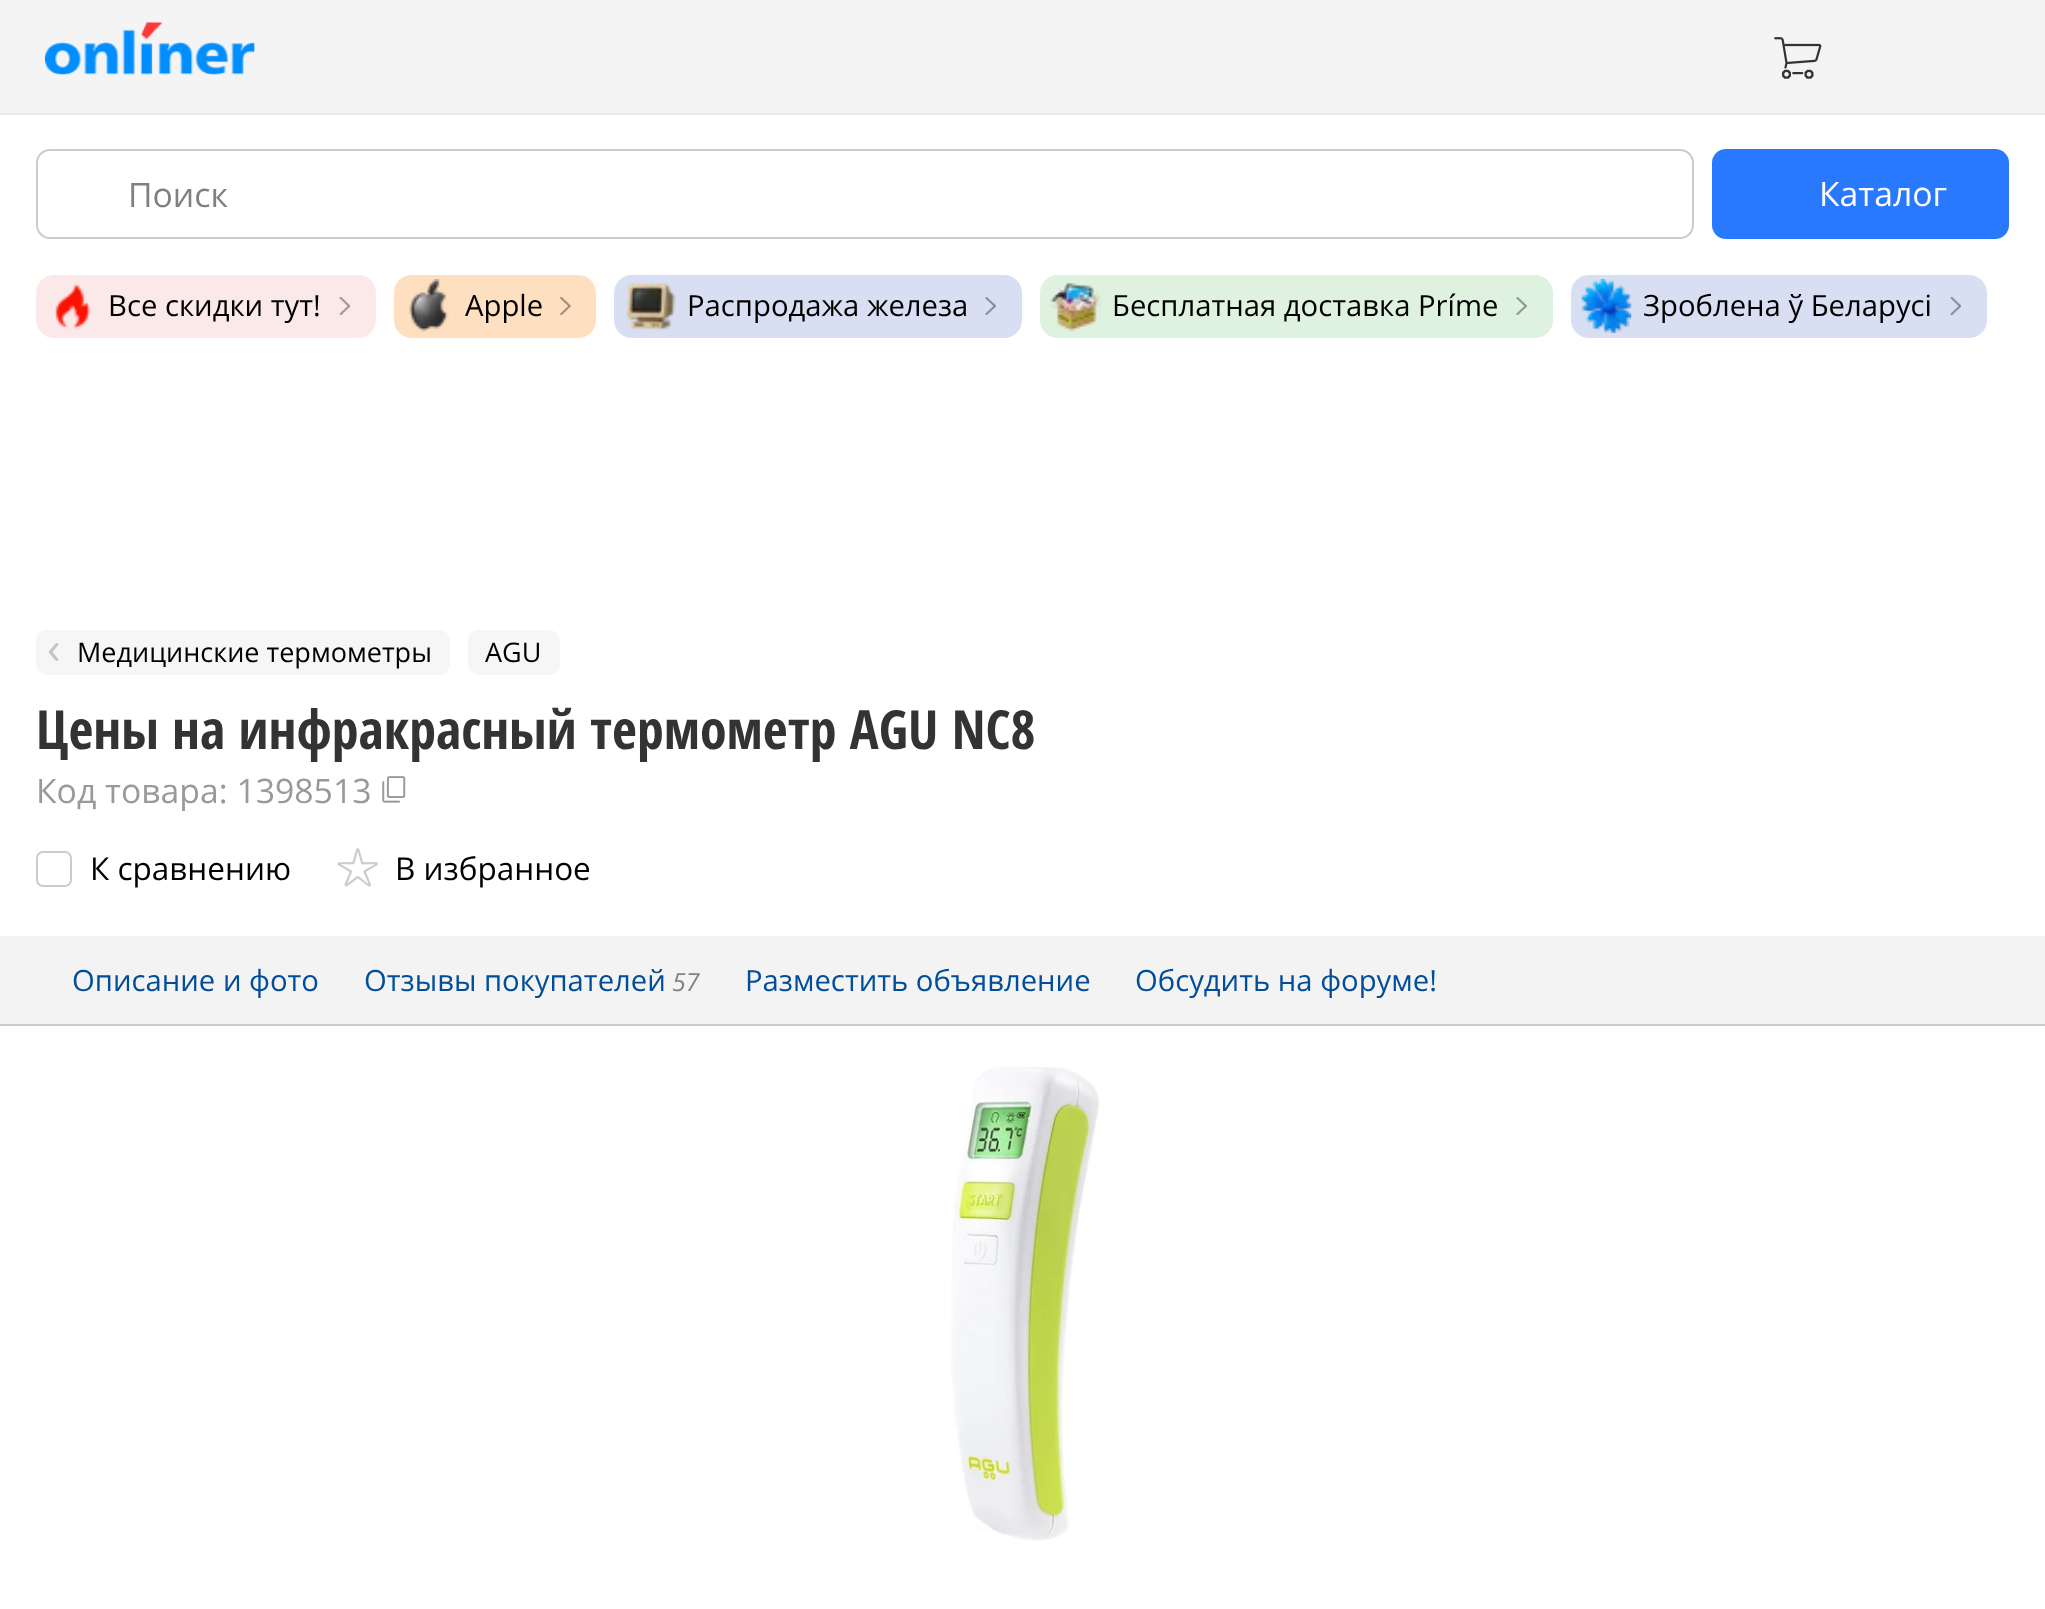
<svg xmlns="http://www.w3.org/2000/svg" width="2045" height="1609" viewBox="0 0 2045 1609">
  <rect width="100%" height="100%" fill="#ffffff"/>
  <rect x="0" y="0" width="2045" height="113" fill="#f4f4f4"/>
  <rect x="0" y="113" width="2045" height="2" fill="#e8e8e8"/>
  <image x="45" y="22" width="210" height="53" href="img1.png"/>
  <image x="1774" y="37" width="48" height="42" href="img2.png"/>
  <rect x="37" y="150" width="1656" height="88" rx="13" fill="none" stroke="#cccccc" stroke-width="2"/>
  <text x="128" y="207" font-family="Open Sans" font-size="33.75" fill="#808080">Поиск</text>
  <rect x="1712" y="149" width="297" height="90" rx="14" fill="#2979ff"/>
  <text x="1819" y="206" font-family="Open Sans" font-size="33.75" fill="#ffffff">Каталог</text>
  <rect x="36" y="275" width="340" height="63" rx="18" fill="#fbe9e9"/>
  <image x="339" y="297" width="11" height="18" href="img3.png"/>
  <image x="55" y="283" width="36" height="46" href="img4.png"/>
  <text x="108" y="316" font-family="Open Sans" font-size="29.25" fill="#000000">Все скидки тут!</text>
  <rect x="394" y="275" width="202" height="63" rx="18" fill="#fee0c1"/>
  <image x="560" y="297" width="11" height="18" href="img5.png"/>
  <image x="409" y="279" width="40" height="53" href="img6.png"/>
  <text x="465" y="316" font-family="Open Sans" font-size="29.25" fill="#000000">Apple</text>
  <rect x="614" y="275" width="408" height="63" rx="18" fill="#d9dff2"/>
  <image x="985" y="297" width="11" height="18" href="img7.png"/>
  <image x="625" y="283" width="51" height="48" href="img8.png"/>
  <text x="687" y="316" font-family="Open Sans" font-size="29.25" fill="#000000">Распродажа железа</text>
  <rect x="1040" y="275" width="513" height="63" rx="18" fill="#dff2df"/>
  <image x="1516" y="297" width="11" height="18" href="img9.png"/>
  <image x="1049" y="283" width="53" height="49" href="img10.png"/>
  <text x="1112" y="316" font-family="Open Sans" font-size="29.25" fill="#000000">Бесплатная доставка Príme</text>
  <rect x="1571" y="275" width="416" height="63" rx="18" fill="#d9dff2"/>
  <image x="1950" y="297" width="11" height="18" href="img11.png"/>
  <image x="1581" y="279" width="51" height="54" href="img12.png"/>
  <text x="1643" y="316" font-family="Open Sans" font-size="29.25" fill="#000000">Зроблена ў Беларусі</text>
  <rect x="36" y="630" width="414" height="45" rx="11" fill="#f6f6f6"/>
  <text x="47" y="664" font-family="Open Sans" font-size="45" fill="#c5c5c5">‹</text>
  <text x="77" y="662" font-family="Open Sans" font-size="27" fill="#000000">Медицинские термометры</text>
  <rect x="468" y="630" width="92" height="45" rx="11" fill="#f6f6f6"/>
  <text x="485" y="662" font-family="Open Sans" font-size="27" fill="#000000">AGU</text>
  <text x="36" y="749" font-family="Open Sans Condensed" font-size="54" font-weight="bold" fill="#333333">Цены на инфракрасный термометр AGU NC8</text>
  <text x="36" y="803" font-family="Open Sans" font-size="33.75" fill="#999999">Код товара: 1398513</text>
  <image x="382" y="776" width="24" height="27" href="img13.png"/>
  <rect x="37" y="852" width="34" height="34" rx="6" fill="none" stroke="#cccccc" stroke-width="2"/>
  <text x="90" y="880" font-family="Open Sans" font-size="31.5" fill="#000000">К сравнению</text>
  <image x="337" y="848" width="41" height="39" href="img14.png"/>
  <text x="395" y="880" font-family="Open Sans" font-size="31.5" fill="#000000">В избранное</text>
  <rect x="0" y="936" width="2045" height="88" fill="#f3f3f3"/>
  <rect x="0" y="1024" width="2045" height="2" fill="#cccccc"/>
  <text x="72" y="991" font-family="Open Sans" font-size="29.25" fill="#004d99">Описание и фото</text>
  <text x="364" y="991" font-family="Open Sans" font-size="29.25" fill="#004d99">Отзывы покупателей</text>
  <text x="672" y="991" font-family="Open Sans" font-size="25" font-style="italic" fill="#808080">57</text>
  <text x="745" y="991" font-family="Open Sans" font-size="29.25" fill="#004d99">Разместить объявление</text>
  <text x="1135" y="991" font-family="Open Sans" font-size="29.25" fill="#004d99">Обсудить на форуме!</text>
  <image x="951" y="1066" width="148" height="475" href="img15.png"/>
</svg>
